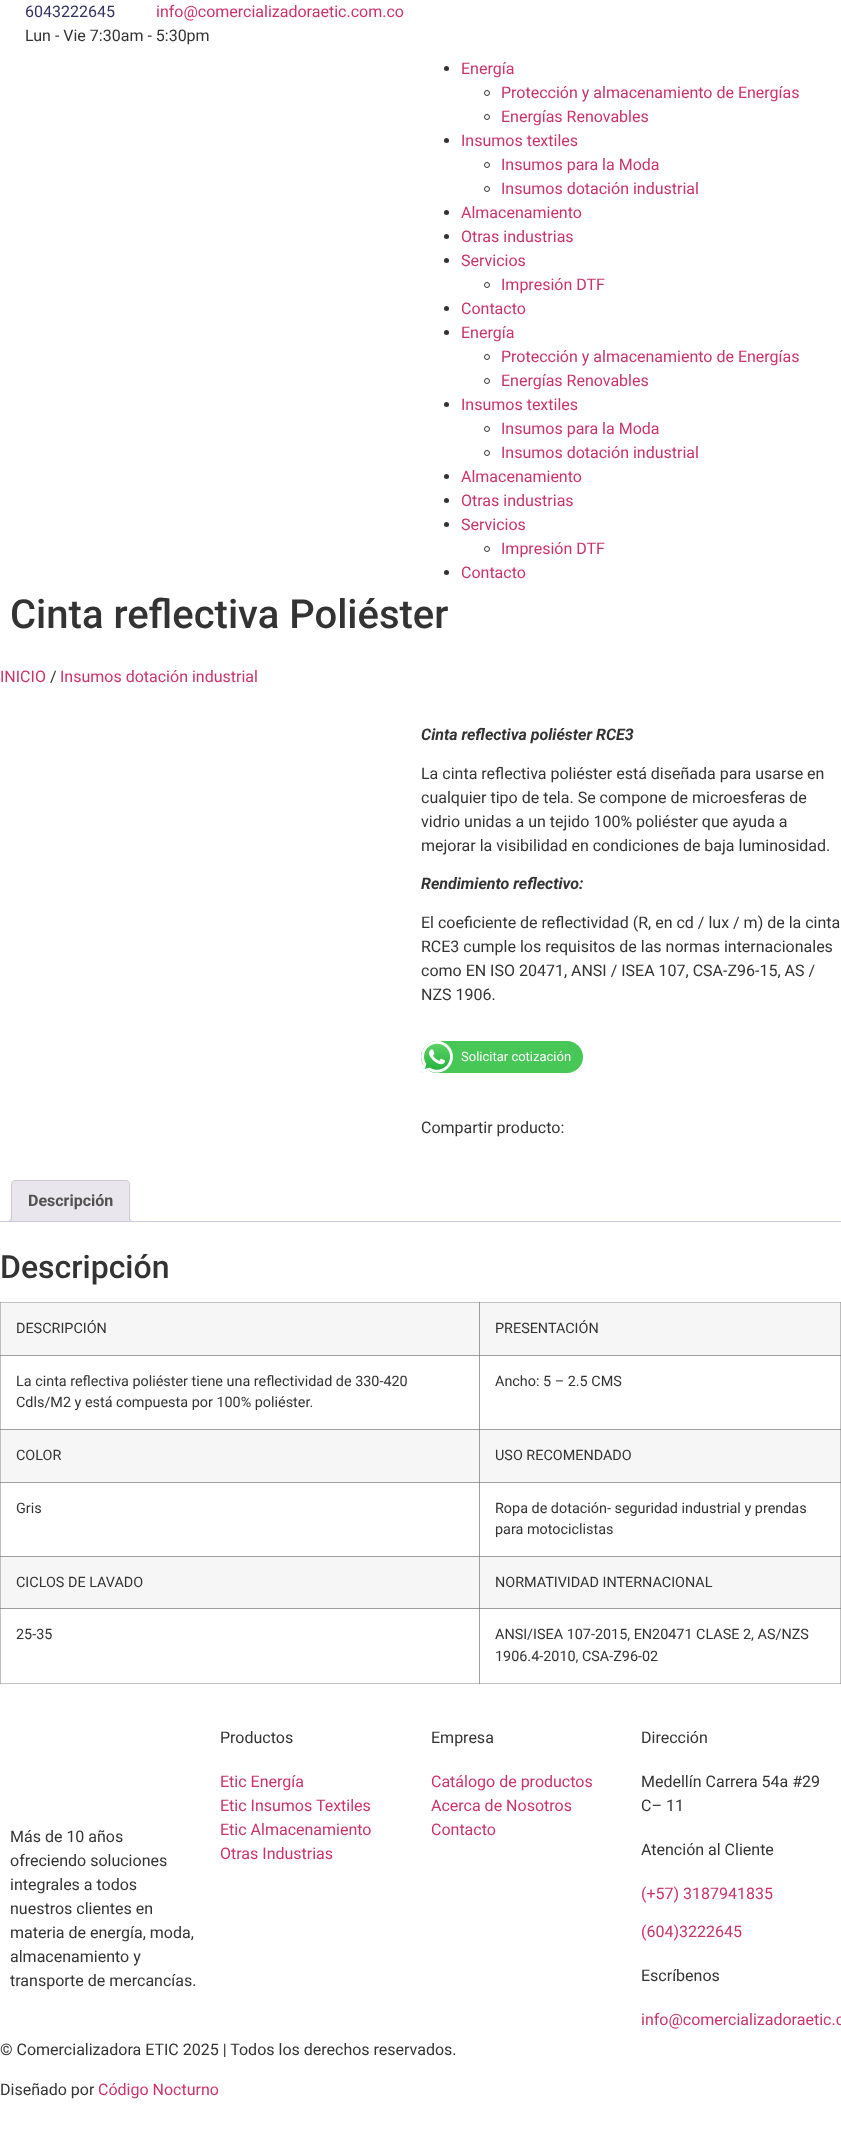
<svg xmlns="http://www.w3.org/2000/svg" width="841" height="2135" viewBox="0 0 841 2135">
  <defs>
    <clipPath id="clip1"><rect x="0" y="1180" width="841" height="42"/></clipPath>
  </defs>
  <rect width="100%" height="100%" fill="#ffffff"/>
  <rect x="0" y="1302" width="1" height="382" fill="#c0c0c0"/>
  <rect x="0" y="1302" width="841" height="1" fill="#c0c0c0"/>
  <rect x="0" y="1302" width="1" height="1" fill="#a0a0a0"/>
  <rect x="0" y="1355" width="480" height="1" fill="#a0a0a0"/>
  <rect x="0" y="1355" width="1" height="1" fill="#888888"/>
  <rect x="479" y="1355" width="1" height="75" fill="#a0a0a0"/>
  <rect x="840" y="1355" width="1" height="75" fill="#c0c0c0"/>
  <rect x="0" y="1429" width="841" height="1" fill="#a0a0a0"/>
  <rect x="0" y="1429" width="1" height="1" fill="#888888"/>
  <rect x="0" y="1482" width="480" height="1" fill="#a0a0a0"/>
  <rect x="0" y="1482" width="1" height="1" fill="#888888"/>
  <rect x="479" y="1482" width="1" height="75" fill="#a0a0a0"/>
  <rect x="840" y="1482" width="1" height="75" fill="#c0c0c0"/>
  <rect x="0" y="1556" width="1" height="1" fill="#888888"/>
  <rect x="0" y="1683" width="480" height="1" fill="#c0c0c0"/>
  <rect x="0" y="1683" width="1" height="1" fill="#a0a0a0"/>
  <rect x="0" y="1608" width="1" height="1" fill="#888888"/>
  <rect x="479" y="1608" width="1" height="76" fill="#a0a0a0"/>
  <rect x="479" y="1683" width="362" height="1" fill="#c0c0c0"/>
  <rect x="479" y="1683" width="1" height="1" fill="#888888"/>
  <rect x="840" y="1608" width="1" height="76" fill="#c0c0c0"/>
  <rect x="840" y="1683" width="1" height="1" fill="#a0a0a0"/>
  <text x="25" y="17" font-family="Roboto" font-size="16" fill="#333366">6043222645</text>
  <text x="156" y="17" font-family="Roboto" font-size="16" fill="#cc3366">info@comercializadoraetic.com.co</text>
  <text x="25" y="41" font-family="Roboto" font-size="16" fill="#333333">Lun - Vie 7:30am - 5:30pm</text>
  <circle cx="446.5" cy="68.5" r="2.5" fill="#333333"/>
  <text x="461" y="74" font-family="Roboto" font-size="16" fill="#cc3366">Energía</text>
  <circle cx="487" cy="93" r="2.5" fill="none" stroke="#333333"/>
  <text x="501" y="98" font-family="Roboto" font-size="16" fill="#cc3366">Protección y almacenamiento de Energías</text>
  <circle cx="487" cy="117" r="2.5" fill="none" stroke="#333333"/>
  <text x="501" y="122" font-family="Roboto" font-size="16" fill="#cc3366">Energías Renovables</text>
  <circle cx="446.5" cy="140.5" r="2.5" fill="#333333"/>
  <text x="461" y="146" font-family="Roboto" font-size="16" fill="#cc3366">Insumos textiles</text>
  <circle cx="487" cy="165" r="2.5" fill="none" stroke="#333333"/>
  <text x="501" y="170" font-family="Roboto" font-size="16" fill="#cc3366">Insumos para la Moda</text>
  <circle cx="487" cy="189" r="2.5" fill="none" stroke="#333333"/>
  <text x="501" y="194" font-family="Roboto" font-size="16" fill="#cc3366">Insumos dotación industrial</text>
  <circle cx="446.5" cy="212.5" r="2.5" fill="#333333"/>
  <text x="461" y="218" font-family="Roboto" font-size="16" fill="#cc3366">Almacenamiento</text>
  <circle cx="446.5" cy="236.5" r="2.5" fill="#333333"/>
  <text x="461" y="242" font-family="Roboto" font-size="16" fill="#cc3366">Otras industrias</text>
  <circle cx="446.5" cy="260.5" r="2.5" fill="#333333"/>
  <text x="461" y="266" font-family="Roboto" font-size="16" fill="#cc3366">Servicios</text>
  <circle cx="487" cy="285" r="2.5" fill="none" stroke="#333333"/>
  <text x="501" y="290" font-family="Roboto" font-size="16" fill="#cc3366">Impresión DTF</text>
  <circle cx="446.5" cy="308.5" r="2.5" fill="#333333"/>
  <text x="461" y="314" font-family="Roboto" font-size="16" fill="#cc3366">Contacto</text>
  <circle cx="446.5" cy="332.5" r="2.5" fill="#333333"/>
  <text x="461" y="338" font-family="Roboto" font-size="16" fill="#cc3366">Energía</text>
  <circle cx="487" cy="357" r="2.5" fill="none" stroke="#333333"/>
  <text x="501" y="362" font-family="Roboto" font-size="16" fill="#cc3366">Protección y almacenamiento de Energías</text>
  <circle cx="487" cy="381" r="2.5" fill="none" stroke="#333333"/>
  <text x="501" y="386" font-family="Roboto" font-size="16" fill="#cc3366">Energías Renovables</text>
  <circle cx="446.5" cy="404.5" r="2.5" fill="#333333"/>
  <text x="461" y="410" font-family="Roboto" font-size="16" fill="#cc3366">Insumos textiles</text>
  <circle cx="487" cy="429" r="2.5" fill="none" stroke="#333333"/>
  <text x="501" y="434" font-family="Roboto" font-size="16" fill="#cc3366">Insumos para la Moda</text>
  <circle cx="487" cy="453" r="2.5" fill="none" stroke="#333333"/>
  <text x="501" y="458" font-family="Roboto" font-size="16" fill="#cc3366">Insumos dotación industrial</text>
  <circle cx="446.5" cy="476.5" r="2.5" fill="#333333"/>
  <text x="461" y="482" font-family="Roboto" font-size="16" fill="#cc3366">Almacenamiento</text>
  <circle cx="446.5" cy="500.5" r="2.5" fill="#333333"/>
  <text x="461" y="506" font-family="Roboto" font-size="16" fill="#cc3366">Otras industrias</text>
  <circle cx="446.5" cy="524.5" r="2.5" fill="#333333"/>
  <text x="461" y="530" font-family="Roboto" font-size="16" fill="#cc3366">Servicios</text>
  <circle cx="487" cy="549" r="2.5" fill="none" stroke="#333333"/>
  <text x="501" y="554" font-family="Roboto" font-size="16" fill="#cc3366">Impresión DTF</text>
  <circle cx="446.5" cy="572.5" r="2.5" fill="#333333"/>
  <text x="461" y="578" font-family="Roboto" font-size="16" fill="#cc3366">Contacto</text>
  <text x="10" y="628" font-family="Roboto" font-size="40" font-weight="500" fill="#333333">Cinta reflectiva Poliéster</text>
  <text x="0" y="682" font-family="Roboto" font-size="16" fill="#cc3366">INICIO</text>
  <text x="50" y="682" font-family="Roboto" font-size="16" fill="#333333">/</text>
  <text x="60" y="682" font-family="Roboto" font-size="16" fill="#cc3366">Insumos dotación industrial</text>
  <text x="421" y="740" font-family="Roboto" font-size="16" font-weight="bold" font-style="italic" fill="#333333">Cinta reflectiva poliéster RCE3</text>
  <text x="421" y="779" font-family="Roboto" font-size="16" fill="#333333">La cinta reflectiva poliéster está diseñada para usarse en</text>
  <text x="421" y="803" font-family="Roboto" font-size="16" fill="#333333">cualquier tipo de tela. Se compone de microesferas de</text>
  <text x="421" y="827" font-family="Roboto" font-size="16" fill="#333333">vidrio unidas a un tejido 100% poliéster que ayuda a</text>
  <text x="421" y="851" font-family="Roboto" font-size="16" fill="#333333">mejorar la visibilidad en condiciones de baja luminosidad.</text>
  <text x="421" y="889" font-family="Roboto" font-size="16" font-weight="bold" font-style="italic" fill="#333333">Rendimiento reflectivo:</text>
  <text x="421" y="928" font-family="Roboto" font-size="16" fill="#333333">El coeficiente de reflectividad (R, en cd / lux / m) de la cinta</text>
  <text x="421" y="952" font-family="Roboto" font-size="16" fill="#333333">RCE3 cumple los requisitos de las normas internacionales</text>
  <text x="421" y="976" font-family="Roboto" font-size="16" fill="#333333">como EN ISO 20471, ANSI / ISEA 107, CSA-Z96-15, AS /</text>
  <text x="421" y="1000" font-family="Roboto" font-size="16" fill="#333333">NZS 1906.</text>
  <rect x="421" y="1041" width="162" height="32" rx="16" fill="#47c756"/>
  <image x="421" y="1041" width="32" height="32" href="img1.png"/>
  <text x="461" y="1061" font-family="Roboto" font-size="13" fill="#ffffff">Solicitar cotización</text>
  <text x="421" y="1133" font-family="Roboto" font-size="16" fill="#333333">Compartir producto:</text>
  <path d="M15 1180.5H126C128 1180.5 129.5 1182 129.5 1184V1221.5H11.5V1184C11.5 1182 13 1180.5 15 1180.5Z" fill="#e9e6ed" stroke="#cfc8d8"/>
  <text x="28" y="1206" font-family="Roboto" font-size="16" font-weight="bold" fill="#515151">Descripción</text>
  <g clip-path="url(#clip1)">
    <path d="M9 1222V1224C12.5 1224 14 1222.5 14 1219H12C11.5 1220.5 10.5 1221.5 9 1222Z" fill="#e9e6ed"/>
  </g>
  <path d="M7 1217H12C12 1220.5 10.5 1222 7 1222ZM7 1217H11C11 1220 10 1221 7 1221Z" fill="#cfc8d8" fill-rule="evenodd"/>
  <g clip-path="url(#clip1)">
    <path d="M127 1219C127 1222.5 128.5 1224 132 1224V1222C130.5 1221.5 129.5 1220.5 129 1219Z" fill="#e9e6ed"/>
  </g>
  <path d="M129 1217H134V1222C131.5 1222 129 1221 129 1218ZM130 1217H134V1221C132 1221 130 1220.5 130 1218Z" fill="#cfc8d8" fill-rule="evenodd"/>
  <rect x="0" y="1221" width="841" height="1" fill="#cfc8d8"/>
  <text x="0" y="1278" font-family="Roboto" font-size="32" font-weight="500" fill="#333333">Descripción</text>
  <rect x="1" y="1303" width="478" height="52" fill="#f6f6f6"/>
  <text x="16" y="1333" font-family="Roboto" font-size="14.4" fill="#333333">DESCRIPCIÓN</text>
  <rect x="480" y="1303" width="360" height="52" fill="#f6f6f6"/>
  <rect x="479" y="1303" width="1" height="52" fill="#9e9e9e"/>
  <rect x="840" y="1303" width="1" height="52" fill="#bbbbbb"/>
  <rect x="479" y="1302" width="1" height="1" fill="#888888"/>
  <rect x="840" y="1302" width="1" height="1" fill="#a0a0a0"/>
  <text x="495" y="1333" font-family="Roboto" font-size="14.4" fill="#333333">PRESENTACIÓN</text>
  <text x="16" y="1386" font-family="Roboto" font-size="14.4" fill="#333333">La cinta reflectiva poliéster tiene una reflectividad de 330-420</text>
  <text x="16" y="1407" font-family="Roboto" font-size="14.4" fill="#333333">Cdls/M2 y está compuesta por 100% poliéster.</text>
  <rect x="479" y="1355" width="362" height="1" fill="#a0a0a0"/>
  <rect x="479" y="1355" width="1" height="1" fill="#818181"/>
  <rect x="840" y="1355" width="1" height="1" fill="#888888"/>
  <text x="495" y="1386" font-family="Roboto" font-size="14.4" fill="#333333">Ancho: 5 – 2.5 CMS</text>
  <rect x="1" y="1430" width="478" height="52" fill="#f6f6f6"/>
  <text x="16" y="1460" font-family="Roboto" font-size="14.4" fill="#333333">COLOR</text>
  <rect x="480" y="1430" width="360" height="52" fill="#f6f6f6"/>
  <rect x="479" y="1430" width="1" height="52" fill="#9e9e9e"/>
  <rect x="840" y="1430" width="1" height="52" fill="#bbbbbb"/>
  <rect x="479" y="1429" width="1" height="1" fill="#818181"/>
  <rect x="840" y="1429" width="1" height="1" fill="#888888"/>
  <text x="495" y="1460" font-family="Roboto" font-size="14.4" fill="#333333">USO RECOMENDADO</text>
  <text x="16" y="1513" font-family="Roboto" font-size="14.4" fill="#333333">Gris</text>
  <rect x="479" y="1482" width="362" height="1" fill="#a0a0a0"/>
  <rect x="479" y="1482" width="1" height="1" fill="#818181"/>
  <rect x="840" y="1482" width="1" height="1" fill="#888888"/>
  <text x="495" y="1513" font-family="Roboto" font-size="14.4" fill="#333333">Ropa de dotación- seguridad industrial y prendas</text>
  <text x="495" y="1534" font-family="Roboto" font-size="14.4" fill="#333333">para motociclistas</text>
  <rect x="1" y="1557" width="478" height="51" fill="#f6f6f6"/>
  <rect x="1" y="1556" width="478" height="1" fill="#9e9e9e"/>
  <rect x="1" y="1608" width="478" height="1" fill="#9e9e9e"/>
  <text x="16" y="1587" font-family="Roboto" font-size="14.4" fill="#333333">CICLOS DE LAVADO</text>
  <rect x="480" y="1557" width="360" height="51" fill="#f6f6f6"/>
  <rect x="479" y="1556" width="1" height="53" fill="#9e9e9e"/>
  <rect x="840" y="1556" width="1" height="53" fill="#bbbbbb"/>
  <rect x="479" y="1556" width="362" height="1" fill="#9e9e9e"/>
  <rect x="479" y="1556" width="1" height="1" fill="#818181"/>
  <rect x="840" y="1556" width="1" height="1" fill="#888888"/>
  <text x="495" y="1587" font-family="Roboto" font-size="14.4" fill="#333333">NORMATIVIDAD INTERNACIONAL</text>
  <text x="16" y="1639" font-family="Roboto" font-size="14.4" fill="#333333">25-35</text>
  <rect x="479" y="1608" width="362" height="1" fill="#9e9e9e"/>
  <rect x="479" y="1608" width="1" height="1" fill="#818181"/>
  <rect x="840" y="1608" width="1" height="1" fill="#888888"/>
  <text x="495" y="1639" font-family="Roboto" font-size="14.4" fill="#333333">ANSI/ISEA 107-2015, EN20471 CLASE 2, AS/NZS</text>
  <text x="495" y="1661" font-family="Roboto" font-size="14.4" fill="#333333">1906.4-2010, CSA-Z96-02</text>
  <text x="10" y="1842" font-family="Roboto" font-size="16" fill="#333333">Más de 10 años</text>
  <text x="10" y="1866" font-family="Roboto" font-size="16" fill="#333333">ofreciendo soluciones</text>
  <text x="10" y="1890" font-family="Roboto" font-size="16" fill="#333333">integrales a todos</text>
  <text x="10" y="1914" font-family="Roboto" font-size="16" fill="#333333">nuestros clientes en</text>
  <text x="10" y="1938" font-family="Roboto" font-size="16" fill="#333333">materia de energía, moda,</text>
  <text x="10" y="1962" font-family="Roboto" font-size="16" fill="#333333">almacenamiento y</text>
  <text x="10" y="1986" font-family="Roboto" font-size="16" fill="#333333">transporte de mercancías.</text>
  <text x="220" y="1743" font-family="Roboto" font-size="16" fill="#333333">Productos</text>
  <text x="220" y="1787" font-family="Roboto" font-size="16" fill="#cc3366">Etic Energía</text>
  <text x="220" y="1811" font-family="Roboto" font-size="16" fill="#cc3366">Etic Insumos Textiles</text>
  <text x="220" y="1835" font-family="Roboto" font-size="16" fill="#cc3366">Etic Almacenamiento</text>
  <text x="220" y="1859" font-family="Roboto" font-size="16" fill="#cc3366">Otras Industrias</text>
  <text x="431" y="1743" font-family="Roboto" font-size="16" fill="#333333">Empresa</text>
  <text x="431" y="1787" font-family="Roboto" font-size="16" fill="#cc3366">Catálogo de productos</text>
  <text x="431" y="1811" font-family="Roboto" font-size="16" fill="#cc3366">Acerca de Nosotros</text>
  <text x="431" y="1835" font-family="Roboto" font-size="16" fill="#cc3366">Contacto</text>
  <text x="641" y="1743" font-family="Roboto" font-size="16" fill="#333333">Dirección</text>
  <text x="641" y="1787" font-family="Roboto" font-size="16" fill="#333333">Medellín Carrera 54a #29</text>
  <text x="641" y="1811" font-family="Roboto" font-size="16" fill="#333333">C– 11</text>
  <text x="641" y="1855" font-family="Roboto" font-size="16" fill="#333333">Atención al Cliente</text>
  <text x="641" y="1899" font-family="Roboto" font-size="16" fill="#cc3366">(+57) 3187941835</text>
  <text x="641" y="1937" font-family="Roboto" font-size="16" fill="#cc3366">(604)3222645</text>
  <text x="641" y="1981" font-family="Roboto" font-size="16" fill="#333333">Escríbenos</text>
  <text x="641" y="2025" font-family="Roboto" font-size="16" fill="#cc3366">info@comercializadoraetic.c</text>
  <text x="0" y="2055" font-family="Roboto" font-size="16" fill="#333333">© Comercializadora ETIC 2025 | Todos los derechos reservados.</text>
  <text x="0" y="2095" font-family="Roboto" font-size="16" fill="#333333">Diseñado por</text>
  <text x="98" y="2095" font-family="Roboto" font-size="16" fill="#cc3366">Código Nocturno</text>
</svg>
